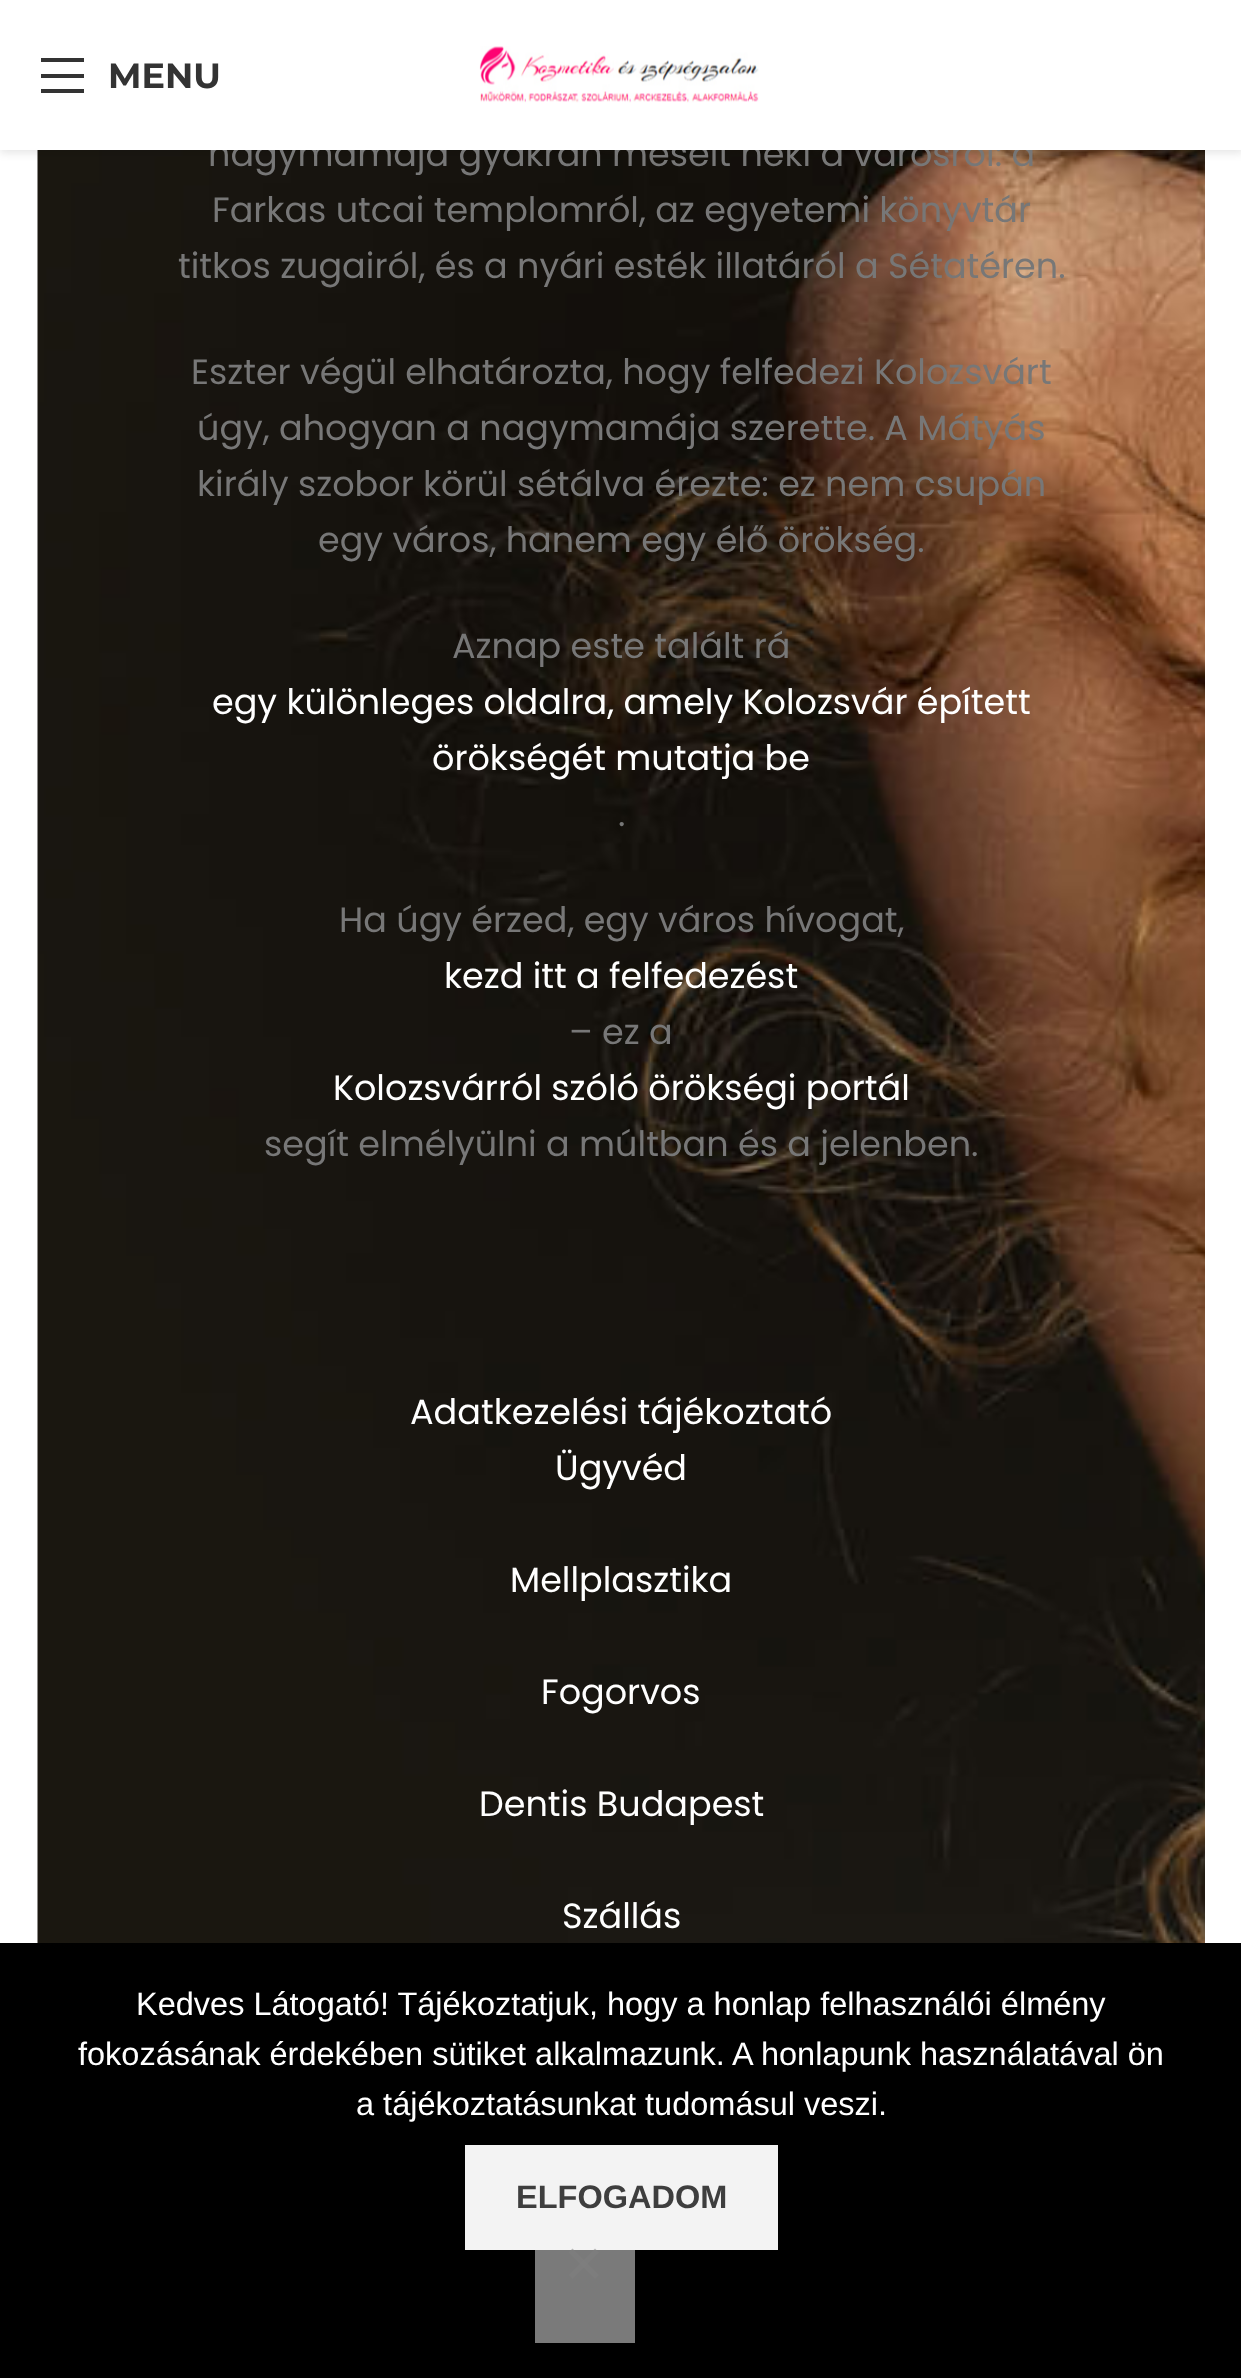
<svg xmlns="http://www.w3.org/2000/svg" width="1241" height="2378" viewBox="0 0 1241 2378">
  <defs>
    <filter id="blur1" x="-50%" y="-200%" width="200%" height="500%"><feGaussianBlur stdDeviation="4"/></filter>
  </defs>
  <rect width="100%" height="100%" fill="#ffffff"/>
  <image x="37" y="150" width="1168" height="1793" href="img2.png"/>
  <rect x="0" y="3" width="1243" height="150" fill="#000000" fill-opacity="0.1" filter="url(#blur1)"/>
  <text x="208" y="166" font-family="Poppins" font-size="35" fill="#777777">nagymamája gyakran mesélt neki a városról: a</text>
  <rect x="0" y="0" width="1241" height="150" fill="#ffffff"/>
  <path d="M41 62H84V58H41ZM41 78H84V74H41ZM41 93H84V89H41Z" fill="#333333"/>
  <text x="108" y="88" font-family="Montserrat" font-size="35" font-weight="bold" fill="#333333">MENU</text>
  <image x="479" y="46" width="280" height="57" href="img1.png"/>
  <text x="212" y="222" font-family="Poppins" font-size="35" fill="#777777">Farkas utcai templomról, az egyetemi könyvtár</text>
  <text x="178" y="278" font-family="Poppins" font-size="35" fill="#777777">titkos zugairól, és a nyári esték illatáról a Sétatéren.</text>
  <text x="191" y="384" font-family="Poppins" font-size="35" fill="#777777">Eszter végül elhatározta, hogy felfedezi Kolozsvárt</text>
  <text x="197" y="440" font-family="Poppins" font-size="35" fill="#777777">úgy, ahogyan a nagymamája szerette. A Mátyás</text>
  <text x="197" y="496" font-family="Poppins" font-size="35" fill="#777777">király szobor körül sétálva érezte: ez nem csupán</text>
  <text x="318" y="552" font-family="Poppins" font-size="35" fill="#777777">egy város, hanem egy élő örökség.</text>
  <text x="452" y="658" font-family="Poppins" font-size="35" fill="#777777">Aznap este talált rá</text>
  <text x="212" y="714" font-family="Poppins" font-size="35" fill="#ffffff">egy különleges oldalra, amely Kolozsvár épített</text>
  <text x="432" y="770" font-family="Poppins" font-size="35" fill="#ffffff">örökségét mutatja be</text>
  <text x="618" y="826" font-family="Poppins" font-size="35" fill="#777777">.</text>
  <text x="339" y="932" font-family="Poppins" font-size="35" fill="#777777">Ha úgy érzed, egy város hívogat,</text>
  <text x="444" y="988" font-family="Poppins" font-size="35" fill="#ffffff">kezd itt a felfedezést</text>
  <text x="569" y="1044" font-family="Poppins" font-size="35" fill="#777777">– ez a</text>
  <text x="333" y="1100" font-family="Poppins" font-size="35" fill="#ffffff">Kolozsvárról szóló örökségi portál</text>
  <text x="264" y="1156" font-family="Poppins" font-size="35" fill="#777777">segít elmélyülni a múltban és a jelenben.</text>
  <text x="410" y="1424" font-family="Poppins" font-size="35" fill="#ffffff">Adatkezelési tájékoztató</text>
  <text x="555" y="1480" font-family="Poppins" font-size="35" fill="#ffffff">Ügyvéd</text>
  <text x="510" y="1592" font-family="Poppins" font-size="35" fill="#ffffff">Mellplasztika</text>
  <text x="541" y="1704" font-family="Poppins" font-size="35" fill="#ffffff">Fogorvos</text>
  <text x="479" y="1816" font-family="Poppins" font-size="35" fill="#ffffff">Dentis Budapest</text>
  <text x="562" y="1928" font-family="Poppins" font-size="35" fill="#ffffff">Szállás</text>
  <rect x="0" y="1943" width="1241" height="435" fill="#000000"/>
  <text x="136" y="2015" font-family="Liberation Sans" font-size="32.5" fill="#ffffff">Kedves Látogató! Tájékoztatjuk, hogy a honlap felhasználói élmény</text>
  <text x="78" y="2065" font-family="Liberation Sans" font-size="32.5" fill="#ffffff">fokozásának érdekében sütiket alkalmazunk. A honlapunk használatával ön</text>
  <text x="356" y="2115" font-family="Liberation Sans" font-size="32.5" fill="#ffffff">a tájékoztatásunkat tudomásul veszi.</text>
  <rect x="465" y="2145" width="313" height="105" fill="#f3f3f3"/>
  <text x="516" y="2208" font-family="Liberation Sans" font-size="32.5" font-weight="bold" fill="#3e3e3e">ELFOGADOM</text>
  <rect x="535" y="2250" width="100" height="93" fill="#f3f3f3" fill-opacity="0.5"/>
  <path d="M595 2248.5L599 2252.5L572.5 2279L568.5 2275Z" fill="#808080" fill-opacity="0.5"/>
  <path d="M568.5 2252.5L572.5 2248.5L599 2275L595 2279Z" fill="#808080" fill-opacity="0.5"/>
</svg>
